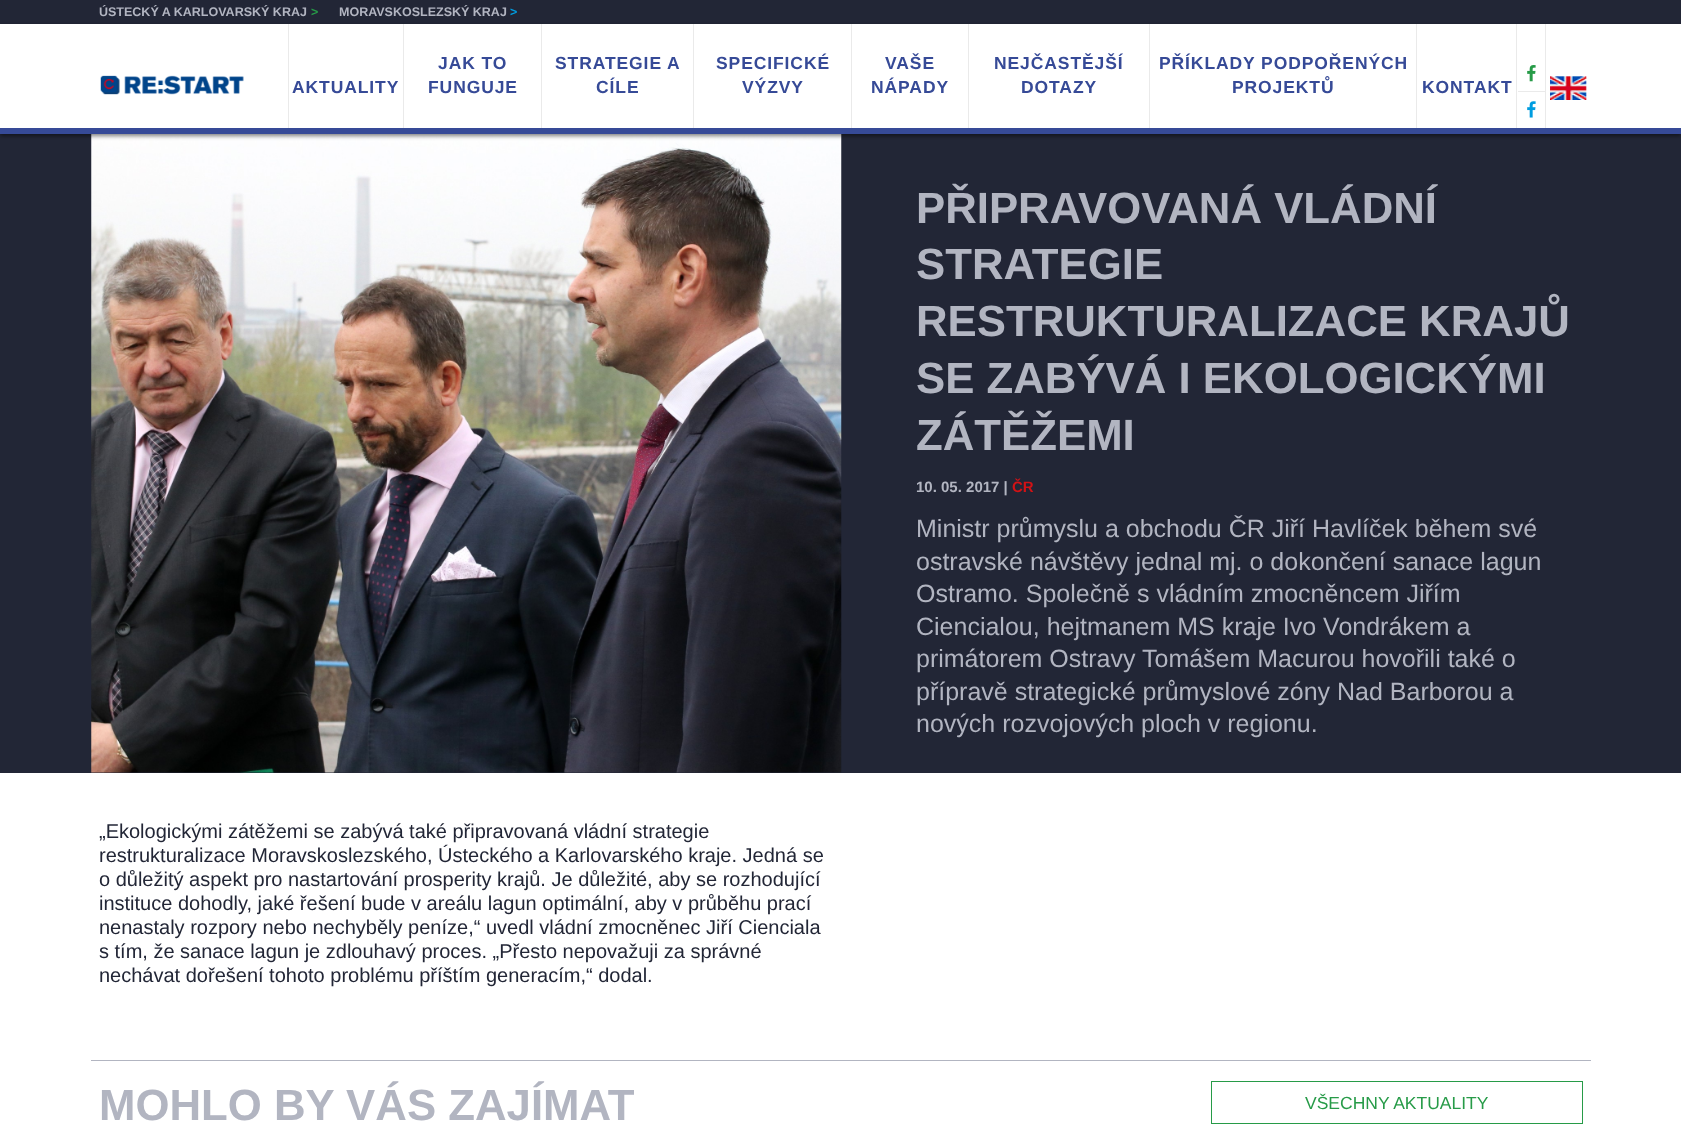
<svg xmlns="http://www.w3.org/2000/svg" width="1681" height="1148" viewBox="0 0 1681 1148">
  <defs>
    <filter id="blur1" x="-50%" y="-200%" width="200%" height="500%"><feGaussianBlur stdDeviation="2"/></filter>
  </defs>
  <rect width="100%" height="100%" fill="#ffffff"/>
  <rect x="0" y="0" width="1681" height="24" fill="#222636"/>
  <text x="99" y="16" font-family="Liberation Sans" font-size="12.5" font-weight="bold" fill="#b2b5c1">ÚSTECKÝ A KARLOVARSKÝ KRAJ</text>
  <text x="311" y="16" font-family="Liberation Sans" font-size="12.5" font-weight="bold" fill="#279b48">&gt;</text>
  <text x="339" y="16" font-family="Liberation Sans" font-size="12.5" font-weight="bold" fill="#b2b5c1">MORAVSKOSLEZSKÝ KRAJ</text>
  <text x="510" y="16" font-family="Liberation Sans" font-size="12.5" font-weight="bold" fill="#009de0">&gt;</text>
  <rect x="0" y="134" width="1681" height="639" fill="#222636"/>
  <image x="91" y="134" width="751" height="639" href="img5.png"/>
  <rect x="0" y="26" width="1681" height="110" fill="#000000" fill-opacity="0.5" filter="url(#blur1)"/>
  <rect x="0" y="24" width="1681" height="104" fill="#ffffff"/>
  <rect x="0" y="128" width="1681" height="6" fill="#364a97"/>
  <image x="100" y="75" width="144" height="20" href="img1.png"/>
  <rect x="288" y="24" width="1" height="104" fill="#eaeaea"/>
  <text x="292" y="93" font-family="Liberation Sans" font-size="17.5" font-weight="bold" letter-spacing="0.9" fill="#364a97">AKTUALITY</text>
  <rect x="403" y="24" width="1" height="104" fill="#eaeaea"/>
  <text x="438" y="69" font-family="Liberation Sans" font-size="17.5" font-weight="bold" letter-spacing="0.9" fill="#364a97">JAK TO</text>
  <text x="428" y="93" font-family="Liberation Sans" font-size="17.5" font-weight="bold" letter-spacing="0.9" fill="#364a97">FUNGUJE</text>
  <rect x="541" y="24" width="1" height="104" fill="#eaeaea"/>
  <text x="555" y="69" font-family="Liberation Sans" font-size="17.5" font-weight="bold" letter-spacing="0.9" fill="#364a97">STRATEGIE A</text>
  <text x="596" y="93" font-family="Liberation Sans" font-size="17.5" font-weight="bold" letter-spacing="0.9" fill="#364a97">CÍLE</text>
  <rect x="693" y="24" width="1" height="104" fill="#eaeaea"/>
  <text x="716" y="69" font-family="Liberation Sans" font-size="17.5" font-weight="bold" letter-spacing="0.9" fill="#364a97">SPECIFICKÉ</text>
  <text x="742" y="93" font-family="Liberation Sans" font-size="17.5" font-weight="bold" letter-spacing="0.9" fill="#364a97">VÝZVY</text>
  <rect x="851" y="24" width="1" height="104" fill="#eaeaea"/>
  <text x="885" y="69" font-family="Liberation Sans" font-size="17.5" font-weight="bold" letter-spacing="0.9" fill="#364a97">VAŠE</text>
  <text x="871" y="93" font-family="Liberation Sans" font-size="17.5" font-weight="bold" letter-spacing="0.9" fill="#364a97">NÁPADY</text>
  <rect x="968" y="24" width="1" height="104" fill="#eaeaea"/>
  <text x="994" y="69" font-family="Liberation Sans" font-size="17.5" font-weight="bold" letter-spacing="0.9" fill="#364a97">NEJČASTĚJŠÍ</text>
  <text x="1021" y="93" font-family="Liberation Sans" font-size="17.5" font-weight="bold" letter-spacing="0.9" fill="#364a97">DOTAZY</text>
  <rect x="1149" y="24" width="1" height="104" fill="#eaeaea"/>
  <text x="1159" y="69" font-family="Liberation Sans" font-size="17.5" font-weight="bold" letter-spacing="0.9" fill="#364a97">PŘÍKLADY PODPOŘENÝCH</text>
  <text x="1232" y="93" font-family="Liberation Sans" font-size="17.5" font-weight="bold" letter-spacing="0.9" fill="#364a97">PROJEKTŮ</text>
  <rect x="1416" y="24" width="1" height="104" fill="#eaeaea"/>
  <text x="1422" y="93" font-family="Liberation Sans" font-size="17.5" font-weight="bold" letter-spacing="0.9" fill="#364a97">KONTAKT</text>
  <rect x="1516" y="24" width="1" height="104" fill="#eaeaea"/>
  <rect x="1518" y="91" width="27" height="1" fill="#eaeaea"/>
  <image x="1527" y="65" width="9" height="17" href="img2.png"/>
  <image x="1527" y="101" width="9" height="17" href="img3.png"/>
  <rect x="1545" y="24" width="1" height="104" fill="#eaeaea"/>
  <image x="1550" y="76" width="37" height="24" href="img4.png"/>
  <text x="916" y="223" font-family="Liberation Sans" font-size="43.75" font-weight="bold" fill="#b2b5c1">PŘIPRAVOVANÁ VLÁDNÍ</text>
  <text x="916" y="279" font-family="Liberation Sans" font-size="43.75" font-weight="bold" fill="#b2b5c1">STRATEGIE</text>
  <text x="916" y="336" font-family="Liberation Sans" font-size="43.75" font-weight="bold" fill="#b2b5c1">RESTRUKTURALIZACE KRAJŮ</text>
  <text x="916" y="393" font-family="Liberation Sans" font-size="43.75" font-weight="bold" fill="#b2b5c1">SE ZABÝVÁ I EKOLOGICKÝMI</text>
  <text x="916" y="450" font-family="Liberation Sans" font-size="43.75" font-weight="bold" fill="#b2b5c1">ZÁTĚŽEMI</text>
  <text x="916" y="492" font-family="Liberation Sans" font-size="15" font-weight="bold" fill="#b2b5c1">10. 05. 2017 |</text>
  <text x="1012" y="492" font-family="Liberation Sans" font-size="15" font-weight="bold" fill="#d21215">ČR</text>
  <text x="916" y="537" font-family="Liberation Sans" font-size="25" fill="#b2b5c1">Ministr průmyslu a obchodu ČR Jiří Havlíček během své</text>
  <text x="916" y="570" font-family="Liberation Sans" font-size="25" fill="#b2b5c1">ostravské návštěvy jednal mj. o dokončení sanace lagun</text>
  <text x="916" y="602" font-family="Liberation Sans" font-size="25" fill="#b2b5c1">Ostramo. Společně s vládním zmocněncem Jiřím</text>
  <text x="916" y="635" font-family="Liberation Sans" font-size="25" fill="#b2b5c1">Ciencialou, hejtmanem MS kraje Ivo Vondrákem a</text>
  <text x="916" y="667" font-family="Liberation Sans" font-size="25" fill="#b2b5c1">primátorem Ostravy Tomášem Macurou hovořili také o</text>
  <text x="916" y="700" font-family="Liberation Sans" font-size="25" fill="#b2b5c1">přípravě strategické průmyslové zóny Nad Barborou a</text>
  <text x="916" y="732" font-family="Liberation Sans" font-size="25" fill="#b2b5c1">nových rozvojových ploch v regionu.</text>
  <text x="99" y="838" font-family="Liberation Sans" font-size="20" fill="#222636">„Ekologickými zátěžemi se zabývá také připravovaná vládní strategie</text>
  <text x="99" y="862" font-family="Liberation Sans" font-size="20" fill="#222636">restrukturalizace Moravskoslezského, Ústeckého a Karlovarského kraje. Jedná se</text>
  <text x="99" y="886" font-family="Liberation Sans" font-size="20" fill="#222636">o důležitý aspekt pro nastartování prosperity krajů. Je důležité, aby se rozhodující</text>
  <text x="99" y="910" font-family="Liberation Sans" font-size="20" fill="#222636">instituce dohodly, jaké řešení bude v areálu lagun optimální, aby v průběhu prací</text>
  <text x="99" y="934" font-family="Liberation Sans" font-size="20" fill="#222636">nenastaly rozpory nebo nechyběly peníze,“ uvedl vládní zmocněnec Jiří Cienciala</text>
  <text x="99" y="958" font-family="Liberation Sans" font-size="20" fill="#222636">s tím, že sanace lagun je zdlouhavý proces. „Přesto nepovažuji za správné</text>
  <text x="99" y="982" font-family="Liberation Sans" font-size="20" fill="#222636">nechávat dořešení tohoto problému příštím generacím,“ dodal.</text>
  <rect x="91" y="1060" width="1500" height="1" fill="#b2b5c1"/>
  <text x="99" y="1120" font-family="Liberation Sans" font-size="43.75" font-weight="bold" fill="#b2b5c1">MOHLO BY VÁS ZAJÍMAT</text>
  <rect x="1211.5" y="1081.5" width="371" height="42" fill="none" stroke="#279b48"/>
  <text x="1305" y="1109" font-family="Liberation Sans" font-size="17.5" fill="#279b48">VŠECHNY AKTUALITY</text>
</svg>
